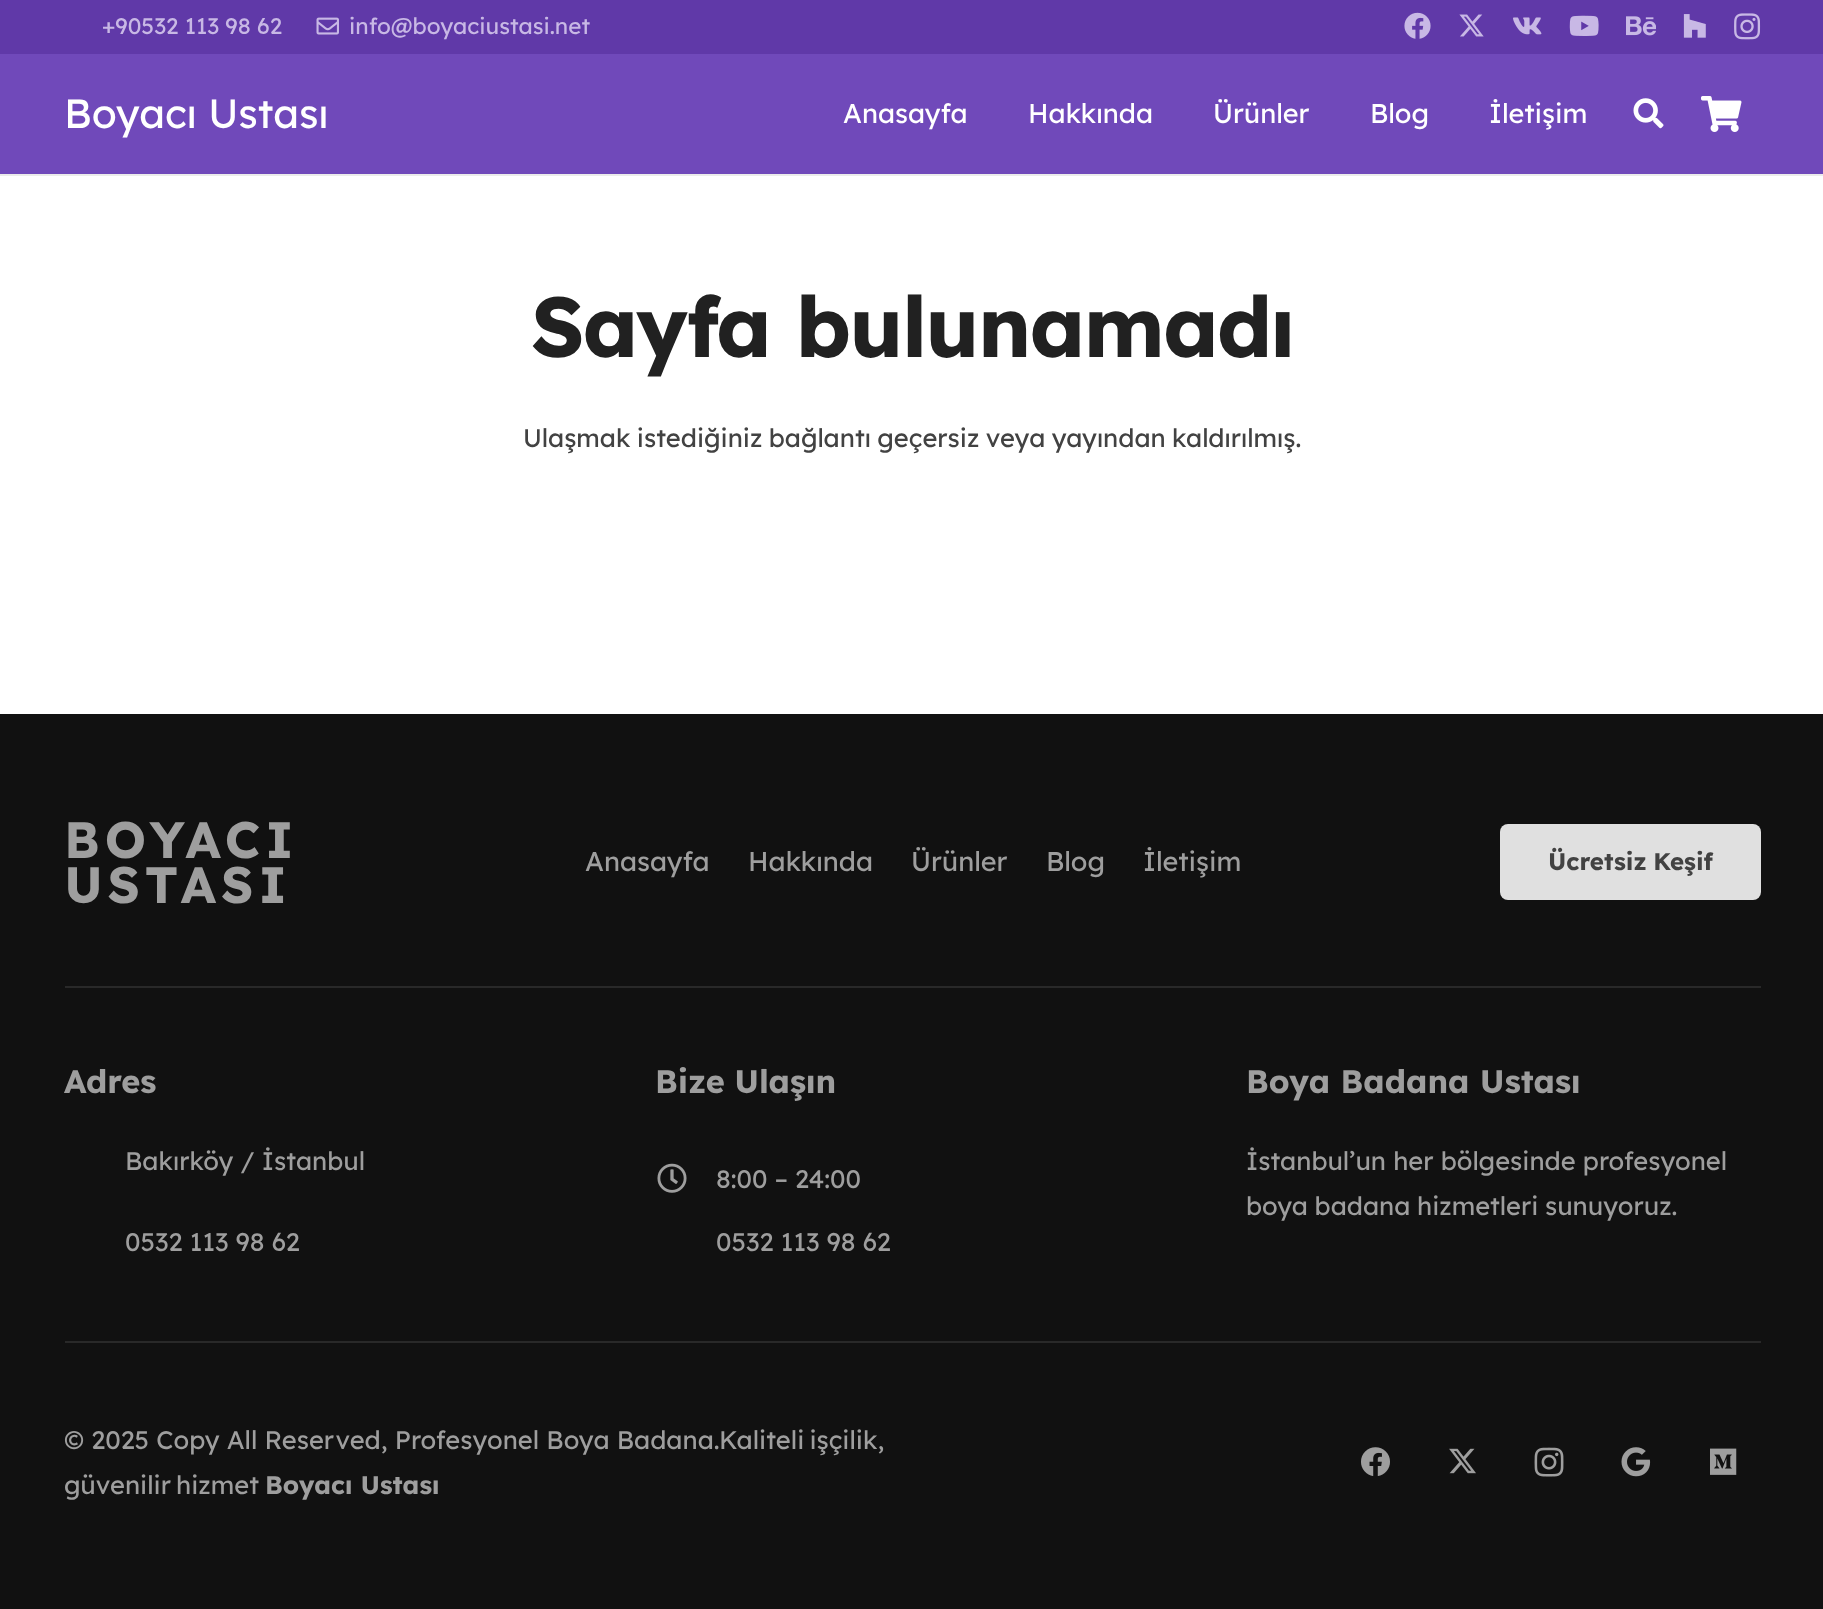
<svg xmlns="http://www.w3.org/2000/svg" width="1823" height="1609" viewBox="0 0 1823 1609">
  <rect width="100%" height="100%" fill="#ffffff"/>
  <rect x="0" y="0" width="1823" height="54" fill="#6039a8"/>
  <text x="102" y="34" font-family="Lexend" font-size="22.5" fill="#c8b8e5">+90532 113 98 62</text>
  <image x="316" y="17" width="23" height="18" href="img1.png"/>
  <text x="349" y="34" font-family="Lexend" font-size="22.5" fill="#c8b8e5">info@boyaciustasi.net</text>
  <image x="1404" y="12" width="27" height="27" href="img2.png"/>
  <image x="1459" y="14" width="25" height="23" href="img3.png"/>
  <image x="1513" y="17" width="29" height="18" href="img4.png"/>
  <image x="1569" y="15" width="30" height="21" href="img5.png"/>
  <image x="1626" y="16" width="30" height="20" href="img6.png"/>
  <image x="1683" y="14" width="23" height="24" href="img7.png"/>
  <image x="1734" y="13" width="27" height="27" href="img8.png"/>
  <rect x="0" y="174" width="1823" height="2" fill="#ebebeb"/>
  <rect x="0" y="54" width="1823" height="120" fill="#7049ba"/>
  <text x="64" y="128" font-family="Lexend" font-size="40.75" fill="#ffffff">Boyacı Ustası</text>
  <text x="843" y="123" font-family="Lexend" font-size="27" fill="#ffffff">Anasayfa</text>
  <text x="1028" y="123" font-family="Lexend" font-size="27" fill="#ffffff">Hakkında</text>
  <text x="1213" y="123" font-family="Lexend" font-size="27" fill="#ffffff">Ürünler</text>
  <text x="1370" y="123" font-family="Lexend" font-size="27" fill="#ffffff">Blog</text>
  <text x="1489" y="123" font-family="Lexend" font-size="27" fill="#ffffff">İletişim</text>
  <image x="1633" y="98" width="31" height="31" href="img9.png"/>
  <image x="1701" y="96" width="41" height="36" href="img10.png"/>
  <text x="531" y="357" font-family="Lexend" font-size="84.5" font-weight="bold" letter-spacing="-1.75" fill="#212121">Sayfa bulunamadı</text>
  <text x="523" y="447" word-spacing="-0.75" font-family="Lexend" font-size="25.5" fill="#424242">Ulaşmak istediğiniz bağlantı geçersiz veya yayından kaldırılmış.</text>
  <rect x="0" y="714" width="1823" height="895" fill="#111111"/>
  <text x="64" y="858" font-family="Lexend" font-size="51" font-weight="bold" letter-spacing="5" fill="#9e9e9e">BOYACI</text>
  <text x="64" y="903" font-family="Lexend" font-size="51" font-weight="bold" letter-spacing="5" fill="#9e9e9e">USTASI</text>
  <text x="585" y="871" font-family="Lexend" font-size="27" fill="#9e9e9e">Anasayfa</text>
  <text x="748" y="871" font-family="Lexend" font-size="27" fill="#9e9e9e">Hakkında</text>
  <text x="911" y="871" font-family="Lexend" font-size="27" fill="#9e9e9e">Ürünler</text>
  <text x="1046" y="871" font-family="Lexend" font-size="27" fill="#9e9e9e">Blog</text>
  <text x="1143" y="871" font-family="Lexend" font-size="27" fill="#9e9e9e">İletişim</text>
  <rect x="1500" y="824" width="261" height="76" rx="8" fill="#e0e0e0"/>
  <text x="1548" y="870" word-spacing="-1" font-family="Lexend" font-size="24" font-weight="bold" fill="#424242">Ücretsiz Keşif</text>
  <rect x="65" y="986" width="1696" height="2" fill="#292929"/>
  <text x="64" y="1093" font-family="Lexend" font-size="32.5" font-weight="bold" fill="#9e9e9e">Adres</text>
  <text x="125" y="1170" font-family="Lexend" font-size="25.5" fill="#9e9e9e">Bakırköy / İstanbul</text>
  <text x="125" y="1251" font-family="Lexend" font-size="25.5" fill="#9e9e9e">0532 113 98 62</text>
  <text x="655" y="1093" word-spacing="-1" font-family="Lexend" font-size="32.5" font-weight="bold" fill="#9e9e9e">Bize Ulaşın</text>
  <image x="657" y="1163" width="30" height="30" href="img11.png"/>
  <text x="716" y="1188" font-family="Lexend" font-size="25.5" fill="#9e9e9e">8:00 – 24:00</text>
  <text x="716" y="1251" font-family="Lexend" font-size="25.5" fill="#9e9e9e">0532 113 98 62</text>
  <text x="1246" y="1093" font-family="Lexend" font-size="32.5" font-weight="bold" fill="#9e9e9e">Boya Badana Ustası</text>
  <text x="1246" y="1170" font-family="Lexend" font-size="25.5" fill="#9e9e9e">İstanbul’un her bölgesinde profesyonel</text>
  <text x="1246" y="1215" word-spacing="-0.5" font-family="Lexend" font-size="25.5" fill="#9e9e9e">boya badana hizmetleri sunuyoruz.</text>
  <rect x="65" y="1341" width="1696" height="2" fill="#292929"/>
  <text x="64" y="1449" font-family="Lexend" font-size="25.5" fill="#9e9e9e">© 2025 Copy All Reserved, Profesyonel Boya Badana.</text>
  <text x="719" y="1449" word-spacing="-2" font-family="Lexend" font-size="25.5" fill="#9e9e9e">Kaliteli işçilik,</text>
  <text x="64" y="1494" word-spacing="-2" font-family="Lexend" font-size="25.5" fill="#9e9e9e">güvenilir hizmet</text>
  <text x="265" y="1494" font-family="Lexend" font-size="25.5" font-weight="bold" fill="#9e9e9e">Boyacı Ustası</text>
  <image x="1361" y="1447" width="29" height="29" href="img12.png"/>
  <image x="1449" y="1448" width="27" height="26" href="img13.png"/>
  <image x="1534" y="1447" width="30" height="30" href="img14.png"/>
  <image x="1621" y="1447" width="30" height="30" href="img15.png"/>
  <image x="1710" y="1448" width="27" height="27" href="img16.png"/>
</svg>
